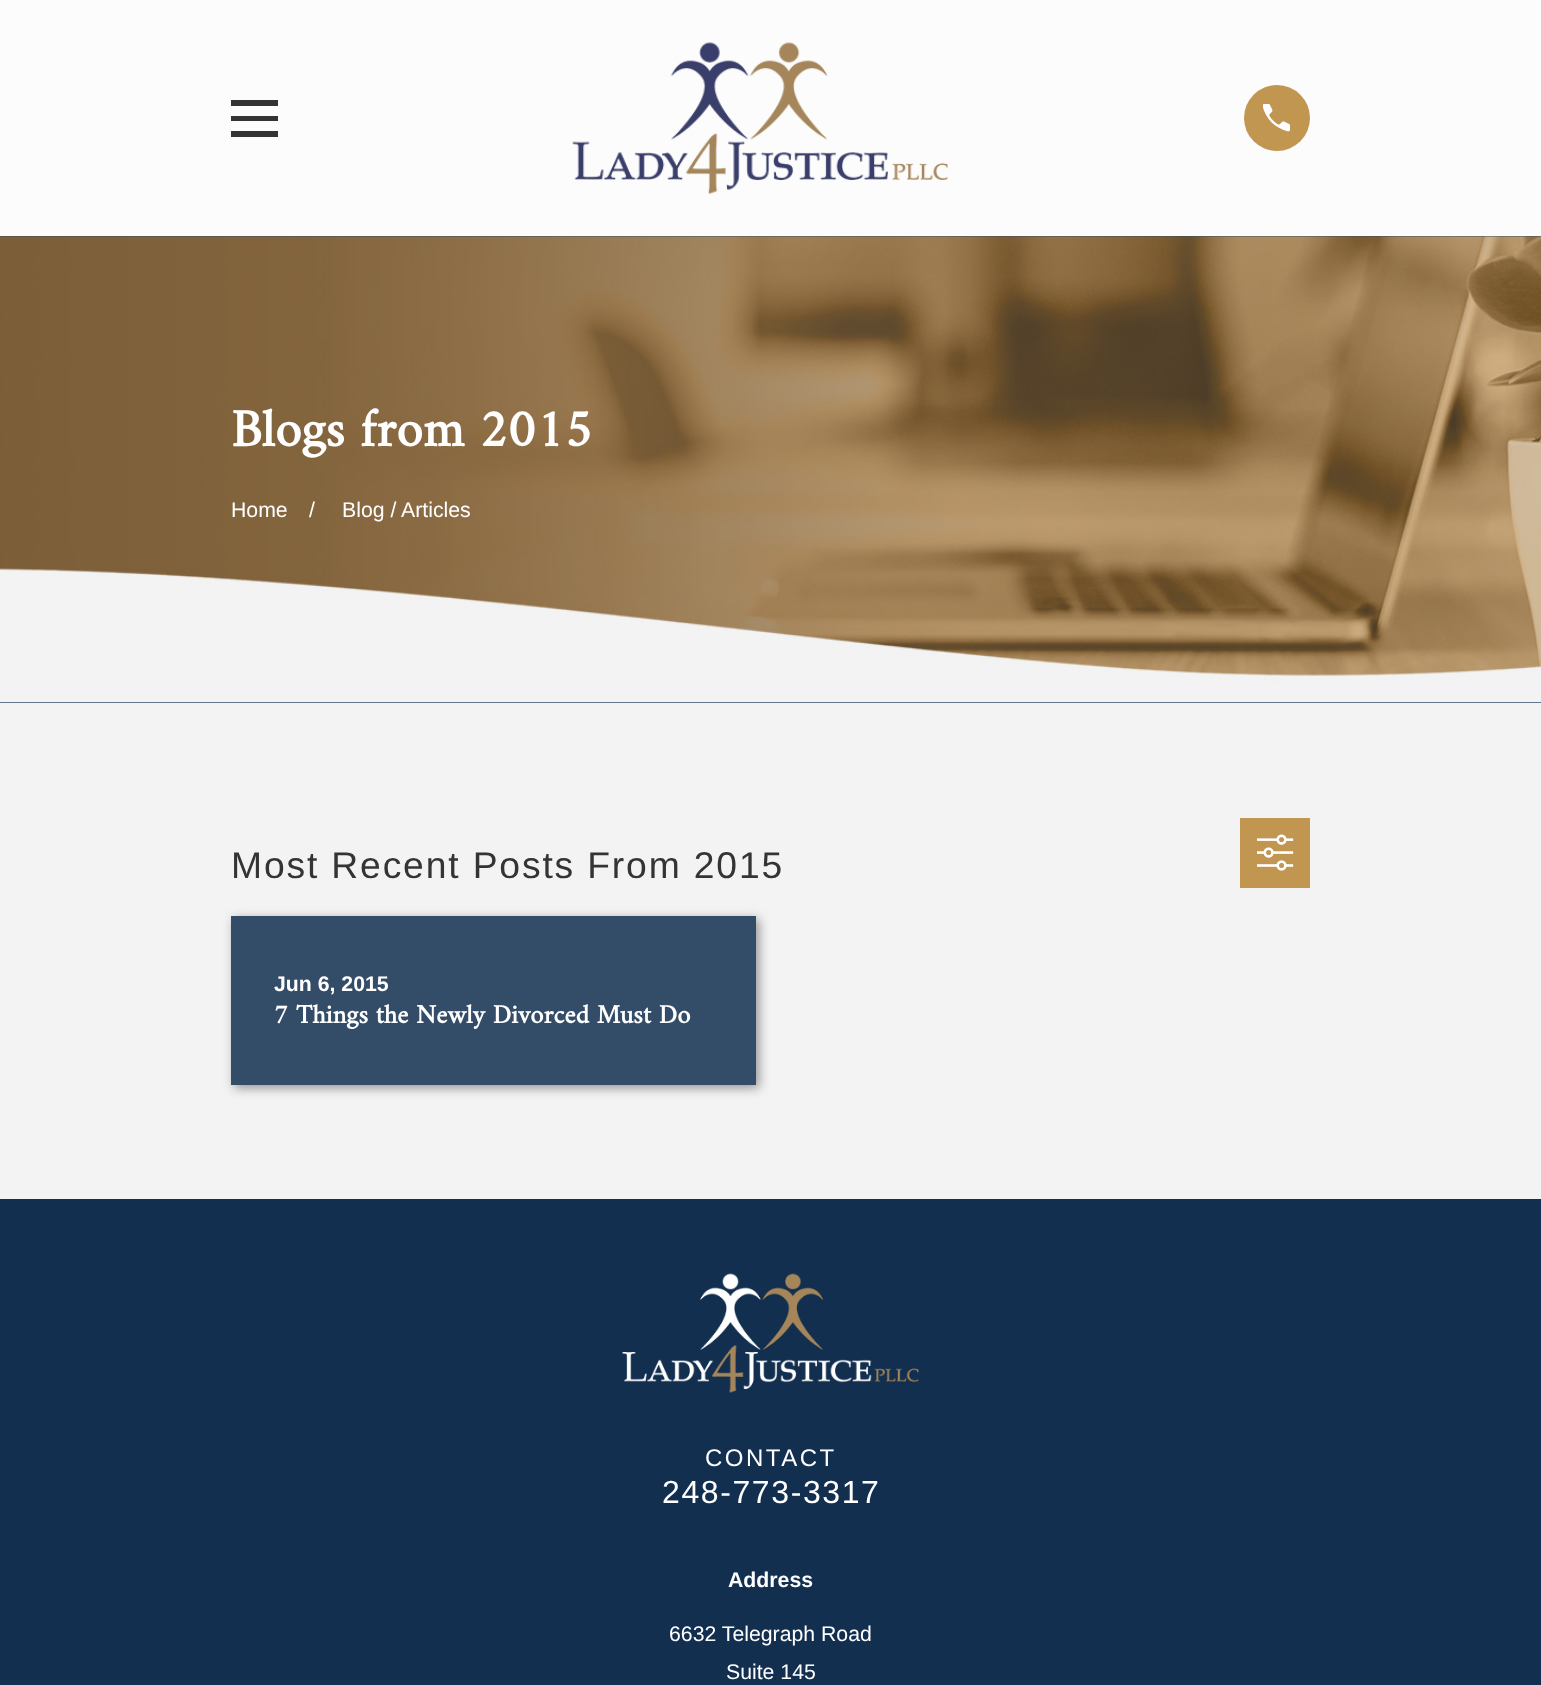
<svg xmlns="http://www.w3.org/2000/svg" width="1541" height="1685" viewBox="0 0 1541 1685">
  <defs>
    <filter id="blur1" x="-50%" y="-200%" width="200%" height="500%"><feGaussianBlur stdDeviation="5.5"/></filter>
  </defs>
  <rect width="100%" height="100%" fill="#f3f3f3"/>
  <rect x="0" y="0" width="1541" height="236" fill="#fcfcfc"/>
  <path d="M231 100V106H278V100ZM231 116V121H278V116ZM231 131V137H278V131Z" fill="#343434"/>
  <image x="572" y="42" width="376" height="152" href="img1.png"/>
  <circle cx="1277" cy="118" r="33" fill="#c19650"/>
  <image x="1263" y="104" width="27" height="28" href="img2.png"/>
  <rect x="0" y="236" width="1541" height="467" fill="#334c68"/>
  <image x="0" y="236" width="1541" height="467" href="img3.png"/>
  <text x="231" y="446" font-family="Amiri" font-size="53.25" font-weight="bold" fill="#ffffff">Blogs from 2015</text>
  <text x="231" y="517" font-family="Arimo" font-size="21.25" fill="#ffffff">Home</text>
  <text x="309" y="517" font-family="Arimo" font-size="21.25" fill="#ffffff">/</text>
  <text x="342" y="517" font-family="Arimo" font-size="21.25" fill="#ffffff">Blog / Articles</text>
  <text x="231" y="878" font-family="Arimo" font-size="37.25" letter-spacing="1.85" fill="#343434">Most Recent Posts From 2015</text>
  <rect x="1240" y="818" width="70" height="70" fill="#c19650"/>
  <image x="1257" y="834" width="37" height="37" href="img4.png"/>
  <rect x="234" y="919" width="525" height="169" fill="#000000" fill-opacity="0.4" filter="url(#blur1)"/>
  <rect x="231" y="916" width="525" height="169" fill="#334c68"/>
  <text x="274" y="991" font-family="Arimo" font-size="21.25" font-weight="bold" fill="#ffffff">Jun 6, 2015</text>
  <text x="274" y="1023" font-family="Amiri" font-size="26.6" font-weight="bold" fill="#ffffff">7 Things the Newly Divorced Must Do</text>
  <rect x="0" y="1199" width="1541" height="486" fill="#122f50"/>
  <image x="622" y="1273" width="297" height="120" href="img5.png"/>
  <text x="705" y="1466" font-family="Arimo" font-size="24" letter-spacing="2.5" fill="#ffffff">CONTACT</text>
  <text x="662" y="1503" font-family="Arimo" font-size="32" letter-spacing="1.6" fill="#ffffff">248-773-3317</text>
  <text x="728" y="1587" font-family="Arimo" font-size="21.25" font-weight="bold" fill="#ffffff">Address</text>
  <text x="669" y="1641" font-family="Arimo" font-size="21.25" fill="#ffffff">6632 Telegraph Road</text>
  <text x="726" y="1679" font-family="Arimo" font-size="21.25" fill="#ffffff">Suite 145</text>
</svg>
